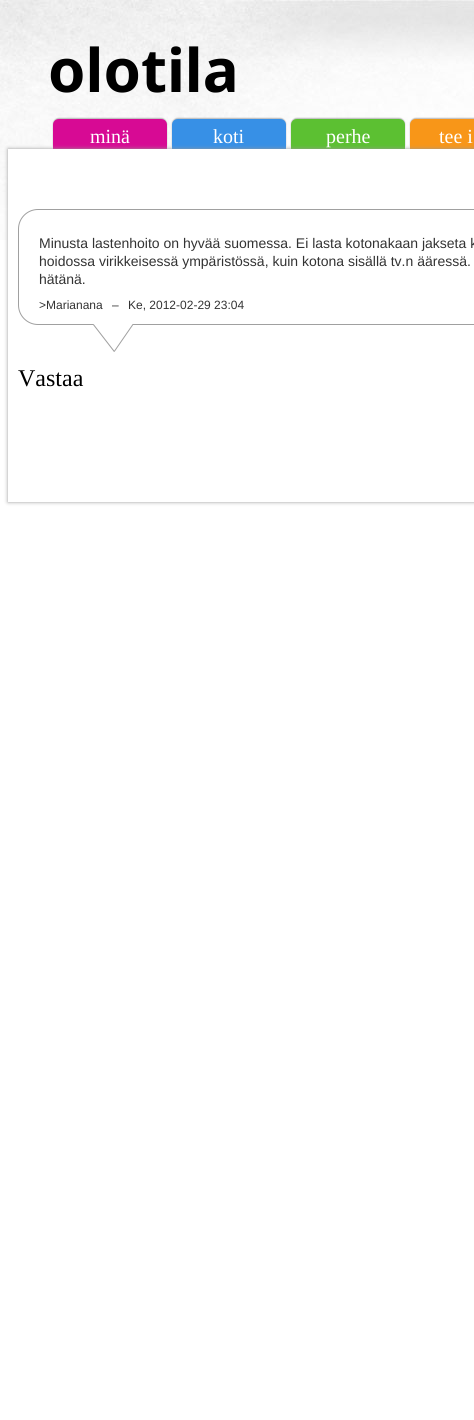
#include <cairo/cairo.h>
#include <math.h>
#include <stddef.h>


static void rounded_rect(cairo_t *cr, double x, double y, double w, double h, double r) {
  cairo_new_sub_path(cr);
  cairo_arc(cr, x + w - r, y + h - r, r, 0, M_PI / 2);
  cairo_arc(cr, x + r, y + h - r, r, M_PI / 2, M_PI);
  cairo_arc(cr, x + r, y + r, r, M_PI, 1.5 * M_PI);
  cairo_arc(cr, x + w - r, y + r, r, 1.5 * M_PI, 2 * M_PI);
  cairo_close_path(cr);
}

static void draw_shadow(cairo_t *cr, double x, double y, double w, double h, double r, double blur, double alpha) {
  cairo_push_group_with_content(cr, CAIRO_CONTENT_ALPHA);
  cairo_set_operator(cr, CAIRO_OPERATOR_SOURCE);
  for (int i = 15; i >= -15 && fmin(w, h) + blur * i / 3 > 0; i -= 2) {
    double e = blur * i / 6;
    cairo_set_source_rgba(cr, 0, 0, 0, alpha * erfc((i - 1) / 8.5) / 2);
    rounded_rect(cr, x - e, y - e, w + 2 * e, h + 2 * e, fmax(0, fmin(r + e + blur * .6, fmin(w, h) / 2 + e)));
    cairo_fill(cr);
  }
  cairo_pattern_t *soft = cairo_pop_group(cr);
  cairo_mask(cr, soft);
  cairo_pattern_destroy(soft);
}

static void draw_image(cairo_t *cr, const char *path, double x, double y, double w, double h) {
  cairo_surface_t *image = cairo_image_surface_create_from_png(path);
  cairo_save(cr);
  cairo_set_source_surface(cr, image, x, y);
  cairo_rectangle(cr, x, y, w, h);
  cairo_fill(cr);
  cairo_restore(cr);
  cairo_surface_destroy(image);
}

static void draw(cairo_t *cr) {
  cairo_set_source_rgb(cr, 1, 1, 1);
  cairo_paint(cr);
  draw_image(cr, "images/1.png", 0, 0, 474, 240);
  cairo_set_source_rgb(cr, 187 / 255.0, 187 / 255.0, 187 / 255.0);
  draw_shadow(cr, 53, 118, 114, 33, 6, 0.5, 1);
  cairo_set_source_rgb(cr, 215 / 255.0, 10 / 255.0, 148 / 255.0);
  cairo_new_path(cr);
  cairo_move_to(cr, 59, 119);
  cairo_line_to(cr, 161, 119);
  cairo_curve_to(cr, 164.5, 119, 167, 121.5, 167, 125);
  cairo_line_to(cr, 167, 152);
  cairo_line_to(cr, 53, 152);
  cairo_line_to(cr, 53, 125);
  cairo_curve_to(cr, 53, 121.5, 55.5, 119, 59, 119);
  cairo_close_path(cr);
  cairo_fill(cr);
  cairo_set_source_rgb(cr, 187 / 255.0, 187 / 255.0, 187 / 255.0);
  draw_shadow(cr, 172, 118, 114, 33, 6, 0.5, 1);
  cairo_set_source_rgb(cr, 55 / 255.0, 144 / 255.0, 230 / 255.0);
  cairo_new_path(cr);
  cairo_move_to(cr, 178, 119);
  cairo_line_to(cr, 280, 119);
  cairo_curve_to(cr, 283.5, 119, 286, 121.5, 286, 125);
  cairo_line_to(cr, 286, 152);
  cairo_line_to(cr, 172, 152);
  cairo_line_to(cr, 172, 125);
  cairo_curve_to(cr, 172, 121.5, 174.5, 119, 178, 119);
  cairo_close_path(cr);
  cairo_fill(cr);
  cairo_set_source_rgb(cr, 187 / 255.0, 187 / 255.0, 187 / 255.0);
  draw_shadow(cr, 291, 118, 114, 33, 6, 0.5, 1);
  cairo_set_source_rgb(cr, 92 / 255.0, 192 / 255.0, 50 / 255.0);
  cairo_new_path(cr);
  cairo_move_to(cr, 297, 119);
  cairo_line_to(cr, 399, 119);
  cairo_curve_to(cr, 402.5, 119, 405, 121.5, 405, 125);
  cairo_line_to(cr, 405, 152);
  cairo_line_to(cr, 291, 152);
  cairo_line_to(cr, 291, 125);
  cairo_curve_to(cr, 291, 121.5, 293.5, 119, 297, 119);
  cairo_close_path(cr);
  cairo_fill(cr);
  cairo_set_source_rgb(cr, 187 / 255.0, 187 / 255.0, 187 / 255.0);
  draw_shadow(cr, 410, 118, 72, 33, 6, 0.5, 1);
  cairo_set_source_rgb(cr, 248 / 255.0, 150 / 255.0, 24 / 255.0);
  cairo_new_path(cr);
  cairo_move_to(cr, 416, 119);
  cairo_line_to(cr, 474, 119);
  cairo_curve_to(cr, 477.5, 119, 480, 121.5, 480, 125);
  cairo_line_to(cr, 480, 152);
  cairo_line_to(cr, 410, 152);
  cairo_line_to(cr, 410, 125);
  cairo_curve_to(cr, 410, 121.5, 412.5, 119, 416, 119);
  cairo_close_path(cr);
  cairo_fill(cr);
  cairo_set_source_rgb(cr, 153 / 255.0, 153 / 255.0, 153 / 255.0);
  draw_shadow(cr, 8, 149, 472, 353, 0, 2, 1);
  cairo_set_source_rgb(cr, 1, 1, 1);
  cairo_rectangle(cr, 8, 149, 466, 353);
  cairo_fill(cr);
  rounded_rect(cr, 18.5, 209.5, 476, 115, 19.5);
  cairo_set_source_rgb(cr, 160 / 255.0, 160 / 255.0, 160 / 255.0);
  cairo_set_line_width(cr, 1);
  cairo_stroke(cr);
  draw_image(cr, "images/2.png", 93, 324, 40, 28);
  cairo_select_font_face(cr, "Noto Sans", CAIRO_FONT_SLANT_NORMAL, CAIRO_FONT_WEIGHT_BOLD);
  cairo_set_font_size(cr, 60);
  cairo_set_source_rgb(cr, 0, 0, 0);
  cairo_move_to(cr, 48, 92);
  cairo_show_text(cr, "olotila");
  cairo_select_font_face(cr, "Liberation Serif", CAIRO_FONT_SLANT_NORMAL, CAIRO_FONT_WEIGHT_NORMAL);
  cairo_set_font_size(cr, 20);
  cairo_set_source_rgb(cr, 1, 1, 1);
  cairo_move_to(cr, 90, 143);
  cairo_show_text(cr, "minä");
  cairo_move_to(cr, 213, 143);
  cairo_show_text(cr, "koti");
  cairo_move_to(cr, 326, 143);
  cairo_show_text(cr, "perhe");
  cairo_move_to(cr, 439, 143);
  cairo_show_text(cr, "tee i");
  cairo_select_font_face(cr, "Liberation Sans", CAIRO_FONT_SLANT_NORMAL, CAIRO_FONT_WEIGHT_NORMAL);
  cairo_set_font_size(cr, 14);
  cairo_set_source_rgb(cr, 51 / 255.0, 51 / 255.0, 51 / 255.0);
  cairo_move_to(cr, 39, 248);
  cairo_show_text(cr, "Minusta lastenhoito on hyvää suomessa. Ei lasta kotonakaan jakseta k");
  cairo_move_to(cr, 39, 266);
  cairo_show_text(cr, "hoidossa virikkeisessä ympäristössä, kuin kotona sisällä tv.n ääressä.");
  cairo_move_to(cr, 39, 284);
  cairo_show_text(cr, "hätänä.");
  cairo_set_font_size(cr, 12);
  cairo_move_to(cr, 39, 309);
  cairo_show_text(cr, ">Marianana");
  cairo_move_to(cr, 112, 309);
  cairo_show_text(cr, "–");
  cairo_move_to(cr, 128, 309);
  cairo_show_text(cr, "Ke, 2012-02-29 23:04");
  cairo_select_font_face(cr, "Liberation Serif", CAIRO_FONT_SLANT_NORMAL, CAIRO_FONT_WEIGHT_NORMAL);
  cairo_set_font_size(cr, 24);
  cairo_set_source_rgb(cr, 0, 0, 0);
  cairo_move_to(cr, 18, 386);
  cairo_show_text(cr, "Vastaa");
}

int main(void) {
  cairo_surface_t *surface = cairo_image_surface_create(CAIRO_FORMAT_RGB24, 474, 1420);
  cairo_t *cr = cairo_create(surface);
  cairo_font_options_t *options = cairo_font_options_create();
  cairo_font_options_set_hint_metrics(options, CAIRO_HINT_METRICS_OFF);
  cairo_font_options_set_hint_style(options, CAIRO_HINT_STYLE_NONE);
  cairo_set_font_options(cr, options);
  cairo_set_miter_limit(cr, 4);
  draw(cr);
  cairo_surface_write_to_png(surface, "out.png");
  cairo_font_options_destroy(options);
  cairo_destroy(cr);
  cairo_surface_destroy(surface);
  return 0;
}
